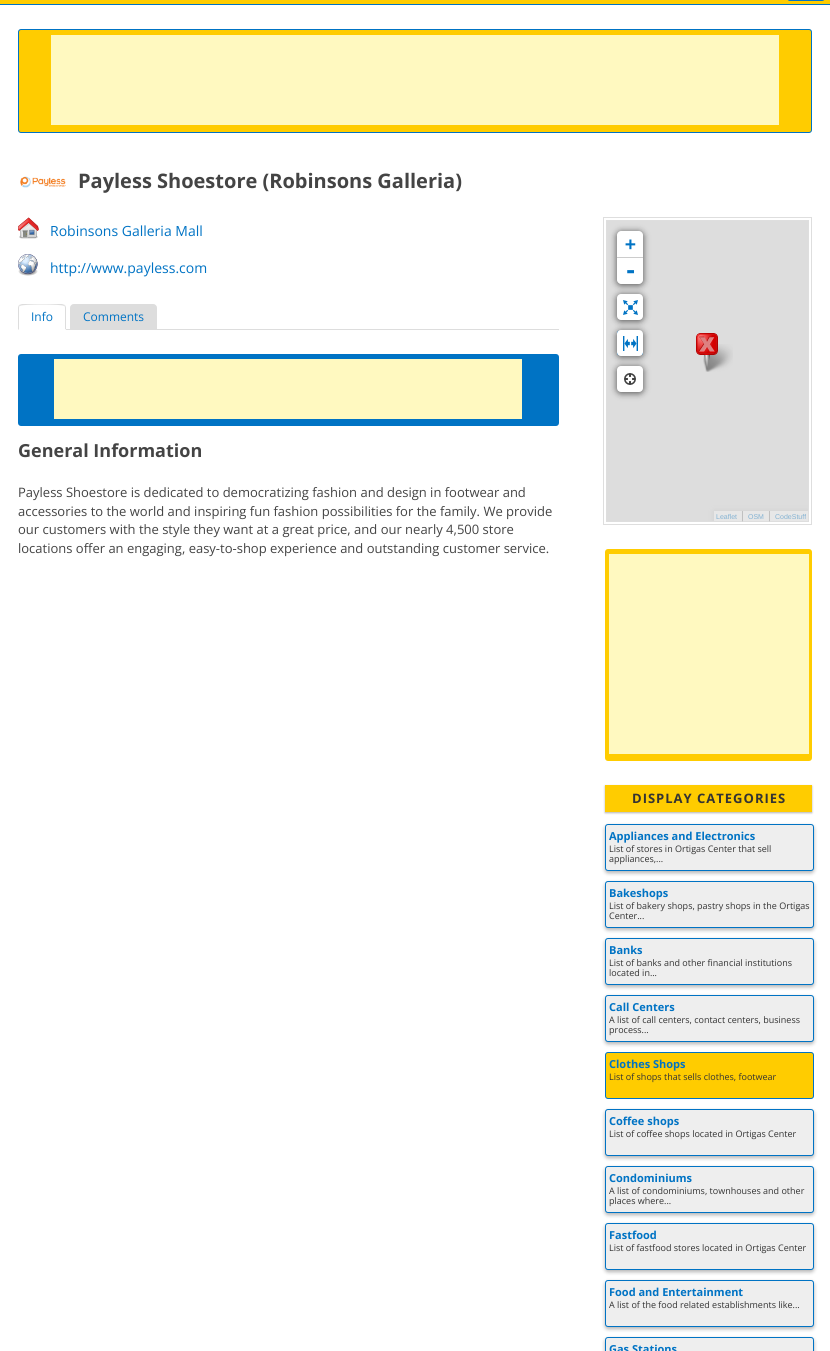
#include <cairo/cairo.h>
#include <math.h>
#include <stddef.h>


static void draw_spaced(cairo_t *cr, double x, double y, const char *s, double letter, double word) {
  cairo_move_to(cr, x, y);
  while (*s) {
    char ch[5] = {0};
    int n = 0;
    do ch[n++] = *s++; while ((*s & 0xC0) == 0x80);
    cairo_show_text(cr, ch);
    cairo_rel_move_to(cr, letter + word * (*ch == ' '), 0);
  }
}

static void rounded_rect(cairo_t *cr, double x, double y, double w, double h, double r) {
  cairo_new_sub_path(cr);
  cairo_arc(cr, x + w - r, y + h - r, r, 0, M_PI / 2);
  cairo_arc(cr, x + r, y + h - r, r, M_PI / 2, M_PI);
  cairo_arc(cr, x + r, y + r, r, M_PI, 1.5 * M_PI);
  cairo_arc(cr, x + w - r, y + r, r, 1.5 * M_PI, 2 * M_PI);
  cairo_close_path(cr);
}

static void draw_shadow(cairo_t *cr, double x, double y, double w, double h, double r, double blur, double alpha) {
  cairo_push_group_with_content(cr, CAIRO_CONTENT_ALPHA);
  cairo_set_operator(cr, CAIRO_OPERATOR_SOURCE);
  for (int i = 15; i >= -15 && fmin(w, h) + blur * i / 3 > 0; i -= 2) {
    double e = blur * i / 6;
    cairo_set_source_rgba(cr, 0, 0, 0, alpha * erfc((i - 1) / 8.5) / 2);
    rounded_rect(cr, x - e, y - e, w + 2 * e, h + 2 * e, fmax(0, fmin(r + e + blur * .6, fmin(w, h) / 2 + e)));
    cairo_fill(cr);
  }
  cairo_pattern_t *soft = cairo_pop_group(cr);
  cairo_mask(cr, soft);
  cairo_pattern_destroy(soft);
}

static void draw_image(cairo_t *cr, const char *path, double x, double y, double w, double h) {
  cairo_surface_t *image = cairo_image_surface_create_from_png(path);
  cairo_save(cr);
  cairo_set_source_surface(cr, image, x, y);
  cairo_rectangle(cr, x, y, w, h);
  cairo_fill(cr);
  cairo_restore(cr);
  cairo_surface_destroy(image);
}

static void draw(cairo_t *cr) {
  cairo_set_source_rgb(cr, 1, 1, 1);
  cairo_paint(cr);
  cairo_set_source_rgb(cr, 1, 204 / 255.0, 0);
  cairo_rectangle(cr, 0, 0, 830, 4);
  cairo_fill(cr);
  rounded_rect(cr, 787.5, -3.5, 37, 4, 2.5);
  cairo_set_source_rgb(cr, 0, 115 / 255.0, 196 / 255.0);
  cairo_set_line_width(cr, 1);
  cairo_stroke(cr);
  cairo_rectangle(cr, 0, 4, 830, 1);
  cairo_fill(cr);
  cairo_set_source_rgb(cr, 1, 204 / 255.0, 0);
  rounded_rect(cr, 18.5, 29.5, 793, 103, 2.5);
  cairo_fill_preserve(cr);
  cairo_set_source_rgb(cr, 0, 115 / 255.0, 196 / 255.0);
  cairo_stroke(cr);
  cairo_set_source_rgb(cr, 1, 249 / 255.0, 192 / 255.0);
  cairo_rectangle(cr, 51, 35, 728, 90);
  cairo_fill(cr);
  draw_image(cr, "images/1.png", 20, 176, 46, 12);
  draw_image(cr, "images/2.png", 18, 217, 21, 22);
  draw_image(cr, "images/3.png", 18, 254, 20, 22);
  cairo_set_source_rgb(cr, 221 / 255.0, 221 / 255.0, 221 / 255.0);
  cairo_rectangle(cr, 66, 329, 493, 1);
  cairo_fill(cr);
  cairo_new_path(cr);
  cairo_move_to(cr, 22, 304);
  cairo_line_to(cr, 19, 305);
  cairo_line_to(cr, 20, 306);
  cairo_curve_to(cr, 21, 304, 63, 304, 64, 306);
  cairo_line_to(cr, 65, 305);
  cairo_line_to(cr, 62, 304);
  cairo_close_path(cr);
  cairo_fill(cr);
  cairo_new_path(cr);
  cairo_move_to(cr, 66, 330);
  cairo_line_to(cr, 66, 308);
  cairo_curve_to(cr, 66, 307, 65.5, 306, 65, 305);
  cairo_line_to(cr, 64, 306);
  cairo_curve_to(cr, 65, 306, 65, 307, 65, 308);
  cairo_line_to(cr, 65, 329);
  cairo_close_path(cr);
  cairo_fill(cr);
  cairo_set_source_rgb(cr, 1, 1, 1);
  cairo_new_path(cr);
  cairo_move_to(cr, 66, 330);
  cairo_line_to(cr, 65, 329);
  cairo_line_to(cr, 19, 329);
  cairo_line_to(cr, 18, 330);
  cairo_close_path(cr);
  cairo_fill(cr);
  cairo_set_source_rgb(cr, 221 / 255.0, 221 / 255.0, 221 / 255.0);
  cairo_new_path(cr);
  cairo_move_to(cr, 18, 330);
  cairo_line_to(cr, 19, 329);
  cairo_line_to(cr, 19, 308);
  cairo_curve_to(cr, 19, 307, 19, 306, 20, 306);
  cairo_line_to(cr, 19, 305);
  cairo_curve_to(cr, 18.5, 306, 18, 307, 18, 308);
  cairo_close_path(cr);
  cairo_fill(cr);
  cairo_new_path(cr);
  cairo_move_to(cr, 74, 304.5);
  cairo_line_to(cr, 153, 304.5);
  cairo_curve_to(cr, 155, 304.5, 156.5, 306, 156.5, 308);
  cairo_line_to(cr, 156.5, 329.5);
  cairo_line_to(cr, 70.5, 329.5);
  cairo_line_to(cr, 70.5, 308);
  cairo_curve_to(cr, 70.5, 306, 72, 304.5, 74, 304.5);
  cairo_close_path(cr);
  cairo_fill_preserve(cr);
  cairo_stroke(cr);
  cairo_set_source_rgb(cr, 0, 115 / 255.0, 196 / 255.0);
  rounded_rect(cr, 18, 354, 541, 72, 3);
  cairo_fill(cr);
  cairo_set_source_rgb(cr, 1, 249 / 255.0, 192 / 255.0);
  cairo_rectangle(cr, 54, 359, 468, 60);
  cairo_fill(cr);
  cairo_rectangle(cr, 603.5, 217.5, 208, 307);
  cairo_set_source_rgb(cr, 222 / 255.0, 222 / 255.0, 222 / 255.0);
  cairo_stroke(cr);
  cairo_rectangle(cr, 606.5, 220.5, 202, 301);
  cairo_stroke(cr);
  cairo_set_source_rgb(cr, 221 / 255.0, 221 / 255.0, 221 / 255.0);
  cairo_rectangle(cr, 607, 221, 201, 300);
  cairo_fill(cr);
  cairo_set_source_rgb(cr, 0, 0, 0);
  draw_shadow(cr, 617, 232, 26, 53, 4, 3.5, 0.65);
  cairo_set_source_rgb(cr, 1, 1, 1);
  cairo_new_path(cr);
  cairo_move_to(cr, 621, 231);
  cairo_line_to(cr, 639, 231);
  cairo_curve_to(cr, 641, 231, 643, 233, 643, 235);
  cairo_line_to(cr, 643, 258);
  cairo_line_to(cr, 617, 258);
  cairo_line_to(cr, 617, 235);
  cairo_curve_to(cr, 617, 233, 619, 231, 621, 231);
  cairo_close_path(cr);
  cairo_fill(cr);
  cairo_set_source_rgb(cr, 204 / 255.0, 204 / 255.0, 204 / 255.0);
  cairo_rectangle(cr, 617, 257, 26, 1);
  cairo_fill(cr);
  cairo_set_source_rgb(cr, 1, 1, 1);
  cairo_new_path(cr);
  cairo_move_to(cr, 617, 258);
  cairo_line_to(cr, 643, 258);
  cairo_line_to(cr, 643, 280);
  cairo_curve_to(cr, 643, 282, 641, 284, 639, 284);
  cairo_line_to(cr, 621, 284);
  cairo_curve_to(cr, 619, 284, 617, 282, 617, 280);
  cairo_close_path(cr);
  cairo_fill(cr);
  cairo_set_source_rgb(cr, 0, 0, 0);
  draw_shadow(cr, 617, 295, 26, 26, 4, 3.5, 0.65);
  cairo_set_source_rgb(cr, 1, 1, 1);
  rounded_rect(cr, 617, 294, 26, 26, 4);
  cairo_fill(cr);
  draw_image(cr, "images/4.png", 623, 300, 15, 15);
  cairo_set_source_rgb(cr, 0, 0, 0);
  draw_shadow(cr, 617, 331, 26, 26, 4, 3.5, 0.65);
  draw_image(cr, "images/5.png", 617, 330, 26, 26);
  cairo_set_source_rgb(cr, 1, 1, 1);
  rounded_rect(cr, 617, 330, 26, 26, 4);
  cairo_fill(cr);
  draw_image(cr, "images/6.png", 623, 336, 15, 15);
  cairo_set_source_rgb(cr, 0, 0, 0);
  draw_shadow(cr, 617, 367, 26, 26, 4, 3.5, 0.65);
  cairo_set_source_rgb(cr, 1, 1, 1);
  rounded_rect(cr, 617, 366, 26, 26, 4);
  cairo_fill(cr);
  draw_image(cr, "images/7.png", 624, 373, 12, 12);
  cairo_save(cr);
  cairo_rectangle(cr, 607, 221, 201, 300);
  cairo_clip(cr);
  cairo_set_source_rgb(cr, 207 / 255.0, 207 / 255.0, 207 / 255.0);
  draw_shadow(cr, 714, 511, 94, 10, 0, 2.5, 1);
  cairo_restore(cr);
  cairo_set_source_rgb(cr, 231 / 255.0, 231 / 255.0, 231 / 255.0);
  cairo_rectangle(cr, 714, 511, 94, 10);
  cairo_fill(cr);
  draw_image(cr, "images/9.png", 703, 344, 30, 28);
  draw_image(cr, "images/8.png", 696, 333, 22, 38);
  cairo_set_source_rgb(cr, 1, 204 / 255.0, 0);
  rounded_rect(cr, 605, 549, 207, 212, 3);
  cairo_fill(cr);
  cairo_set_source_rgb(cr, 1, 249 / 255.0, 192 / 255.0);
  cairo_rectangle(cr, 609, 554, 200, 200);
  cairo_fill(cr);
  cairo_set_source_rgb(cr, 0, 0, 0);
  draw_shadow(cr, 605, 786, 207, 27, 0, 1, 0.3);
  cairo_set_source_rgb(cr, 1, 204 / 255.0, 0);
  cairo_rectangle(cr, 605, 785, 207, 27);
  cairo_fill(cr);
  cairo_set_source_rgb(cr, 0, 0, 0);
  draw_shadow(cr, 605, 826, 209, 47, 3, 2, 0.3);
  cairo_set_source_rgb(cr, 238 / 255.0, 238 / 255.0, 238 / 255.0);
  rounded_rect(cr, 605.5, 824.5, 208, 46, 2.5);
  cairo_fill_preserve(cr);
  cairo_set_source_rgb(cr, 0, 115 / 255.0, 196 / 255.0);
  cairo_stroke(cr);
  cairo_set_source_rgb(cr, 0, 0, 0);
  draw_shadow(cr, 605, 883, 209, 47, 3, 2, 0.3);
  cairo_set_source_rgb(cr, 238 / 255.0, 238 / 255.0, 238 / 255.0);
  rounded_rect(cr, 605.5, 881.5, 208, 46, 2.5);
  cairo_fill_preserve(cr);
  cairo_set_source_rgb(cr, 0, 115 / 255.0, 196 / 255.0);
  cairo_stroke(cr);
  cairo_set_source_rgb(cr, 0, 0, 0);
  draw_shadow(cr, 605, 940, 209, 47, 3, 2, 0.3);
  cairo_set_source_rgb(cr, 238 / 255.0, 238 / 255.0, 238 / 255.0);
  rounded_rect(cr, 605.5, 938.5, 208, 46, 2.5);
  cairo_fill_preserve(cr);
  cairo_set_source_rgb(cr, 0, 115 / 255.0, 196 / 255.0);
  cairo_stroke(cr);
  cairo_set_source_rgb(cr, 0, 0, 0);
  draw_shadow(cr, 605, 997, 209, 47, 3, 2, 0.3);
  cairo_set_source_rgb(cr, 238 / 255.0, 238 / 255.0, 238 / 255.0);
  rounded_rect(cr, 605.5, 995.5, 208, 46, 2.5);
  cairo_fill_preserve(cr);
  cairo_set_source_rgb(cr, 0, 115 / 255.0, 196 / 255.0);
  cairo_stroke(cr);
  cairo_set_source_rgb(cr, 1, 204 / 255.0, 0);
  rounded_rect(cr, 605.5, 1052.5, 208, 46, 2.5);
  cairo_fill_preserve(cr);
  cairo_set_source_rgb(cr, 0, 115 / 255.0, 196 / 255.0);
  cairo_stroke(cr);
  cairo_set_source_rgb(cr, 0, 0, 0);
  draw_shadow(cr, 605, 1111, 209, 47, 3, 2, 0.3);
  cairo_set_source_rgb(cr, 238 / 255.0, 238 / 255.0, 238 / 255.0);
  rounded_rect(cr, 605.5, 1109.5, 208, 46, 2.5);
  cairo_fill_preserve(cr);
  cairo_set_source_rgb(cr, 0, 115 / 255.0, 196 / 255.0);
  cairo_stroke(cr);
  cairo_set_source_rgb(cr, 0, 0, 0);
  draw_shadow(cr, 605, 1168, 209, 47, 3, 2, 0.3);
  cairo_set_source_rgb(cr, 238 / 255.0, 238 / 255.0, 238 / 255.0);
  rounded_rect(cr, 605.5, 1166.5, 208, 46, 2.5);
  cairo_fill_preserve(cr);
  cairo_set_source_rgb(cr, 0, 115 / 255.0, 196 / 255.0);
  cairo_stroke(cr);
  cairo_set_source_rgb(cr, 0, 0, 0);
  draw_shadow(cr, 605, 1225, 209, 47, 3, 2, 0.3);
  cairo_set_source_rgb(cr, 238 / 255.0, 238 / 255.0, 238 / 255.0);
  rounded_rect(cr, 605.5, 1223.5, 208, 46, 2.5);
  cairo_fill_preserve(cr);
  cairo_set_source_rgb(cr, 0, 115 / 255.0, 196 / 255.0);
  cairo_stroke(cr);
  cairo_set_source_rgb(cr, 0, 0, 0);
  draw_shadow(cr, 605, 1282, 209, 47, 3, 2, 0.3);
  cairo_set_source_rgb(cr, 238 / 255.0, 238 / 255.0, 238 / 255.0);
  rounded_rect(cr, 605.5, 1280.5, 208, 46, 2.5);
  cairo_fill_preserve(cr);
  cairo_set_source_rgb(cr, 0, 115 / 255.0, 196 / 255.0);
  cairo_stroke(cr);
  cairo_set_source_rgb(cr, 0, 0, 0);
  draw_shadow(cr, 605, 1339, 209, 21, 3, 2, 0.3);
  cairo_set_source_rgb(cr, 238 / 255.0, 238 / 255.0, 238 / 255.0);
  rounded_rect(cr, 605.5, 1337.5, 208, 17, 2.5);
  cairo_fill_preserve(cr);
  cairo_set_source_rgb(cr, 0, 115 / 255.0, 196 / 255.0);
  cairo_stroke(cr);
  cairo_select_font_face(cr, "Open Sans", CAIRO_FONT_SLANT_NORMAL, CAIRO_FONT_WEIGHT_BOLD);
  cairo_set_font_size(cr, 20);
  cairo_set_source_rgb(cr, 68 / 255.0, 68 / 255.0, 68 / 255.0);
  cairo_move_to(cr, 78, 188);
  cairo_show_text(cr, "Payless Shoestore (Robinsons Galleria)");
  cairo_select_font_face(cr, "Open Sans", CAIRO_FONT_SLANT_NORMAL, CAIRO_FONT_WEIGHT_NORMAL);
  cairo_set_font_size(cr, 14);
  cairo_set_source_rgb(cr, 0, 115 / 255.0, 196 / 255.0);
  cairo_move_to(cr, 50, 236);
  cairo_show_text(cr, "Robinsons Galleria Mall");
  cairo_move_to(cr, 50, 273);
  cairo_show_text(cr, "http://www.payless.com");
  cairo_set_font_size(cr, 12);
  cairo_move_to(cr, 31, 321);
  cairo_show_text(cr, "Info");
  cairo_move_to(cr, 83, 321);
  cairo_show_text(cr, "Comments");
  cairo_select_font_face(cr, "Open Sans", CAIRO_FONT_SLANT_NORMAL, CAIRO_FONT_WEIGHT_BOLD);
  cairo_set_font_size(cr, 18);
  cairo_set_source_rgb(cr, 68 / 255.0, 68 / 255.0, 68 / 255.0);
  cairo_move_to(cr, 18, 457);
  cairo_show_text(cr, "General Information");
  cairo_select_font_face(cr, "Open Sans", CAIRO_FONT_SLANT_NORMAL, CAIRO_FONT_WEIGHT_NORMAL);
  cairo_set_font_size(cr, 13);
  cairo_move_to(cr, 18, 497);
  cairo_show_text(cr, "Payless Shoestore is dedicated to democratizing fashion and design in footwear and");
  cairo_move_to(cr, 18, 516);
  cairo_show_text(cr, "accessories to the world and inspiring fun fashion possibilities for the family. We provide");
  cairo_move_to(cr, 18, 534);
  cairo_show_text(cr, "our customers with the style they want at a great price, and our nearly 4,500 store");
  cairo_move_to(cr, 18, 553);
  cairo_show_text(cr, "locations offer an engaging, easy-to-shop experience and outstanding customer service.");
  cairo_select_font_face(cr, "DejaVu Sans Mono", CAIRO_FONT_SLANT_NORMAL, CAIRO_FONT_WEIGHT_BOLD);
  cairo_set_font_size(cr, 18);
  cairo_set_source_rgb(cr, 0, 115 / 255.0, 196 / 255.0);
  cairo_move_to(cr, 625, 250);
  cairo_show_text(cr, "+");
  cairo_set_font_size(cr, 22);
  cairo_move_to(cr, 624, 278);
  cairo_show_text(cr, "-");
  cairo_select_font_face(cr, "Liberation Sans", CAIRO_FONT_SLANT_NORMAL, CAIRO_FONT_WEIGHT_NORMAL);
  cairo_set_font_size(cr, 7);
  cairo_set_source_rgb(cr, 133 / 255.0, 179 / 255.0, 211 / 255.0);
  cairo_move_to(cr, 716, 519);
  cairo_show_text(cr, "Leaflet");
  cairo_set_font_size(cr, 11);
  cairo_set_source_rgb(cr, 187 / 255.0, 187 / 255.0, 187 / 255.0);
  cairo_move_to(cr, 741, 519);
  cairo_show_text(cr, "|");
  cairo_set_font_size(cr, 7);
  cairo_set_source_rgb(cr, 133 / 255.0, 179 / 255.0, 211 / 255.0);
  cairo_move_to(cr, 748, 519);
  cairo_show_text(cr, "OSM");
  cairo_set_font_size(cr, 11);
  cairo_set_source_rgb(cr, 187 / 255.0, 187 / 255.0, 187 / 255.0);
  cairo_move_to(cr, 768, 519);
  cairo_show_text(cr, "|");
  cairo_set_font_size(cr, 7);
  cairo_set_source_rgb(cr, 133 / 255.0, 179 / 255.0, 211 / 255.0);
  cairo_move_to(cr, 775, 519);
  cairo_show_text(cr, "CodeStuff");
  cairo_select_font_face(cr, "Open Sans", CAIRO_FONT_SLANT_NORMAL, CAIRO_FONT_WEIGHT_BOLD);
  cairo_set_font_size(cr, 13);
  cairo_set_source_rgb(cr, 51 / 255.0, 51 / 255.0, 51 / 255.0);
  draw_spaced(cr, 632, 803, "DISPLAY CATEGORIES", 1, 0);
  cairo_set_font_size(cr, 11);
  cairo_set_source_rgb(cr, 0, 115 / 255.0, 196 / 255.0);
  cairo_move_to(cr, 609, 840);
  cairo_show_text(cr, "Appliances and Electronics");
  cairo_select_font_face(cr, "Open Sans", CAIRO_FONT_SLANT_NORMAL, CAIRO_FONT_WEIGHT_NORMAL);
  cairo_set_font_size(cr, 9);
  cairo_set_source_rgb(cr, 51 / 255.0, 51 / 255.0, 51 / 255.0);
  cairo_move_to(cr, 609, 852);
  cairo_show_text(cr, "List of stores in Ortigas Center that sell");
  cairo_move_to(cr, 609, 862);
  cairo_show_text(cr, "appliances,...");
  cairo_select_font_face(cr, "Open Sans", CAIRO_FONT_SLANT_NORMAL, CAIRO_FONT_WEIGHT_BOLD);
  cairo_set_font_size(cr, 11);
  cairo_set_source_rgb(cr, 0, 115 / 255.0, 196 / 255.0);
  cairo_move_to(cr, 609, 897);
  cairo_show_text(cr, "Bakeshops");
  cairo_select_font_face(cr, "Open Sans", CAIRO_FONT_SLANT_NORMAL, CAIRO_FONT_WEIGHT_NORMAL);
  cairo_set_font_size(cr, 9);
  cairo_set_source_rgb(cr, 51 / 255.0, 51 / 255.0, 51 / 255.0);
  cairo_move_to(cr, 609, 909);
  cairo_show_text(cr, "List of bakery shops, pastry shops in the Ortigas");
  cairo_move_to(cr, 609, 919);
  cairo_show_text(cr, "Center...");
  cairo_select_font_face(cr, "Open Sans", CAIRO_FONT_SLANT_NORMAL, CAIRO_FONT_WEIGHT_BOLD);
  cairo_set_font_size(cr, 11);
  cairo_set_source_rgb(cr, 0, 115 / 255.0, 196 / 255.0);
  cairo_move_to(cr, 609, 954);
  cairo_show_text(cr, "Banks");
  cairo_select_font_face(cr, "Open Sans", CAIRO_FONT_SLANT_NORMAL, CAIRO_FONT_WEIGHT_NORMAL);
  cairo_set_font_size(cr, 9);
  cairo_set_source_rgb(cr, 51 / 255.0, 51 / 255.0, 51 / 255.0);
  cairo_move_to(cr, 609, 966);
  cairo_show_text(cr, "List of banks and other financial institutions");
  cairo_move_to(cr, 609, 976);
  cairo_show_text(cr, "located in...");
  cairo_select_font_face(cr, "Open Sans", CAIRO_FONT_SLANT_NORMAL, CAIRO_FONT_WEIGHT_BOLD);
  cairo_set_font_size(cr, 11);
  cairo_set_source_rgb(cr, 0, 115 / 255.0, 196 / 255.0);
  cairo_move_to(cr, 609, 1011);
  cairo_show_text(cr, "Call Centers");
  cairo_select_font_face(cr, "Open Sans", CAIRO_FONT_SLANT_NORMAL, CAIRO_FONT_WEIGHT_NORMAL);
  cairo_set_font_size(cr, 9);
  cairo_set_source_rgb(cr, 51 / 255.0, 51 / 255.0, 51 / 255.0);
  cairo_move_to(cr, 609, 1023);
  cairo_show_text(cr, "A list of call centers, contact centers, business");
  cairo_move_to(cr, 609, 1033);
  cairo_show_text(cr, "process...");
  cairo_select_font_face(cr, "Open Sans", CAIRO_FONT_SLANT_NORMAL, CAIRO_FONT_WEIGHT_BOLD);
  cairo_set_font_size(cr, 11);
  cairo_set_source_rgb(cr, 0, 115 / 255.0, 196 / 255.0);
  cairo_move_to(cr, 609, 1068);
  cairo_show_text(cr, "Clothes Shops");
  cairo_select_font_face(cr, "Open Sans", CAIRO_FONT_SLANT_NORMAL, CAIRO_FONT_WEIGHT_NORMAL);
  cairo_set_font_size(cr, 9);
  cairo_set_source_rgb(cr, 51 / 255.0, 51 / 255.0, 51 / 255.0);
  cairo_move_to(cr, 609, 1080);
  cairo_show_text(cr, "List of shops that sells clothes, footwear");
  cairo_select_font_face(cr, "Open Sans", CAIRO_FONT_SLANT_NORMAL, CAIRO_FONT_WEIGHT_BOLD);
  cairo_set_font_size(cr, 11);
  cairo_set_source_rgb(cr, 0, 115 / 255.0, 196 / 255.0);
  cairo_move_to(cr, 609, 1125);
  cairo_show_text(cr, "Coffee shops");
  cairo_select_font_face(cr, "Open Sans", CAIRO_FONT_SLANT_NORMAL, CAIRO_FONT_WEIGHT_NORMAL);
  cairo_set_font_size(cr, 9);
  cairo_set_source_rgb(cr, 51 / 255.0, 51 / 255.0, 51 / 255.0);
  cairo_move_to(cr, 609, 1137);
  cairo_show_text(cr, "List of coffee shops located in Ortigas Center");
  cairo_select_font_face(cr, "Open Sans", CAIRO_FONT_SLANT_NORMAL, CAIRO_FONT_WEIGHT_BOLD);
  cairo_set_font_size(cr, 11);
  cairo_set_source_rgb(cr, 0, 115 / 255.0, 196 / 255.0);
  cairo_move_to(cr, 609, 1182);
  cairo_show_text(cr, "Condominiums");
  cairo_select_font_face(cr, "Open Sans", CAIRO_FONT_SLANT_NORMAL, CAIRO_FONT_WEIGHT_NORMAL);
  cairo_set_font_size(cr, 9);
  cairo_set_source_rgb(cr, 51 / 255.0, 51 / 255.0, 51 / 255.0);
  cairo_move_to(cr, 609, 1194);
  cairo_show_text(cr, "A list of condominiums, townhouses and other");
  cairo_move_to(cr, 609, 1204);
  cairo_show_text(cr, "places where...");
  cairo_select_font_face(cr, "Open Sans", CAIRO_FONT_SLANT_NORMAL, CAIRO_FONT_WEIGHT_BOLD);
  cairo_set_font_size(cr, 11);
  cairo_set_source_rgb(cr, 0, 115 / 255.0, 196 / 255.0);
  cairo_move_to(cr, 609, 1239);
  cairo_show_text(cr, "Fastfood");
  cairo_select_font_face(cr, "Open Sans", CAIRO_FONT_SLANT_NORMAL, CAIRO_FONT_WEIGHT_NORMAL);
  cairo_set_font_size(cr, 9);
  cairo_set_source_rgb(cr, 51 / 255.0, 51 / 255.0, 51 / 255.0);
  cairo_move_to(cr, 609, 1251);
  cairo_show_text(cr, "List of fastfood stores located in Ortigas Center");
  cairo_select_font_face(cr, "Open Sans", CAIRO_FONT_SLANT_NORMAL, CAIRO_FONT_WEIGHT_BOLD);
  cairo_set_font_size(cr, 11);
  cairo_set_source_rgb(cr, 0, 115 / 255.0, 196 / 255.0);
  cairo_move_to(cr, 609, 1296);
  cairo_show_text(cr, "Food and Entertainment");
  cairo_select_font_face(cr, "Open Sans", CAIRO_FONT_SLANT_NORMAL, CAIRO_FONT_WEIGHT_NORMAL);
  cairo_set_font_size(cr, 9);
  cairo_set_source_rgb(cr, 51 / 255.0, 51 / 255.0, 51 / 255.0);
  cairo_move_to(cr, 609, 1308);
  cairo_show_text(cr, "A list of the food related establishments like...");
  cairo_select_font_face(cr, "Open Sans", CAIRO_FONT_SLANT_NORMAL, CAIRO_FONT_WEIGHT_BOLD);
  cairo_set_font_size(cr, 11);
  cairo_set_source_rgb(cr, 0, 115 / 255.0, 196 / 255.0);
  cairo_move_to(cr, 609, 1353);
  cairo_show_text(cr, "Gas Stations");
}

int main(void) {
  cairo_surface_t *surface = cairo_image_surface_create(CAIRO_FORMAT_RGB24, 830, 1351);
  cairo_t *cr = cairo_create(surface);
  cairo_font_options_t *options = cairo_font_options_create();
  cairo_font_options_set_hint_metrics(options, CAIRO_HINT_METRICS_OFF);
  cairo_font_options_set_hint_style(options, CAIRO_HINT_STYLE_NONE);
  cairo_set_font_options(cr, options);
  cairo_set_miter_limit(cr, 4);
  draw(cr);
  cairo_surface_write_to_png(surface, "out.png");
  cairo_font_options_destroy(options);
  cairo_destroy(cr);
  cairo_surface_destroy(surface);
  return 0;
}
